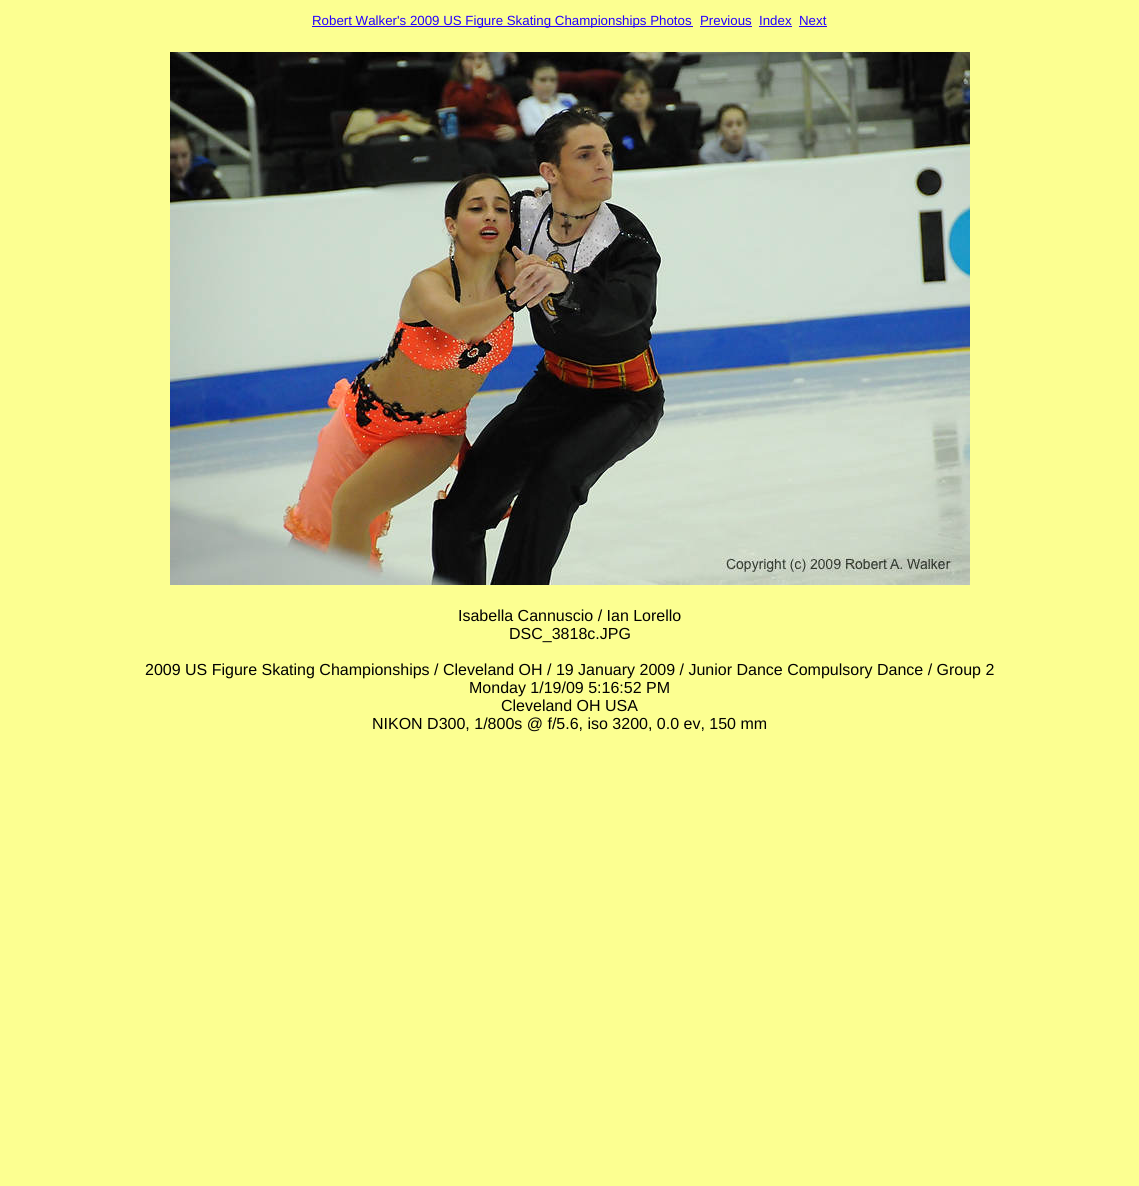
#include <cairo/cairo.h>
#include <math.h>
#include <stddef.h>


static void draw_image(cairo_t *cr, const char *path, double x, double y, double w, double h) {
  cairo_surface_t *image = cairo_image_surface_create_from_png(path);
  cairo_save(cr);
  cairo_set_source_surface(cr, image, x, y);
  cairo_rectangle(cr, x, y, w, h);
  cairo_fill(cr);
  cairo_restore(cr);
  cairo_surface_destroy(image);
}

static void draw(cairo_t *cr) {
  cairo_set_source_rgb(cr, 252 / 255.0, 1, 145 / 255.0);
  cairo_paint(cr);
  cairo_set_source_rgb(cr, 35 / 255.0, 0, 1);
  cairo_rectangle(cr, 312, 26, 381, 1);
  cairo_fill(cr);
  cairo_rectangle(cr, 700, 26, 52, 1);
  cairo_fill(cr);
  cairo_rectangle(cr, 759, 26, 33, 1);
  cairo_fill(cr);
  cairo_rectangle(cr, 799, 26, 28, 1);
  cairo_fill(cr);
  draw_image(cr, "images/1.png", 170, 52, 800, 533);
  cairo_select_font_face(cr, "Liberation Sans", CAIRO_FONT_SLANT_NORMAL, CAIRO_FONT_WEIGHT_NORMAL);
  cairo_set_font_size(cr, 13.3);
  cairo_move_to(cr, 312, 25);
  cairo_show_text(cr, "Robert Walker's 2009 US Figure Skating Championships Photos");
  cairo_move_to(cr, 700, 25);
  cairo_show_text(cr, "Previous");
  cairo_move_to(cr, 759, 25);
  cairo_show_text(cr, "Index");
  cairo_move_to(cr, 799, 25);
  cairo_show_text(cr, "Next");
  cairo_set_font_size(cr, 16);
  cairo_set_source_rgb(cr, 0, 0, 0);
  cairo_move_to(cr, 458, 621);
  cairo_show_text(cr, "Isabella Cannuscio / Ian Lorello");
  cairo_move_to(cr, 509, 639);
  cairo_show_text(cr, "DSC_3818c.JPG");
  cairo_move_to(cr, 145, 675);
  cairo_show_text(cr, "2009 US Figure Skating Championships / Cleveland OH / 19 January 2009 / Junior Dance Compulsory Dance / Group 2");
  cairo_move_to(cr, 469, 693);
  cairo_show_text(cr, "Monday 1/19/09 5:16:52 PM");
  cairo_move_to(cr, 501, 711);
  cairo_show_text(cr, "Cleveland OH USA");
  cairo_move_to(cr, 372, 729);
  cairo_show_text(cr, "NIKON D300, 1/800s @ f/5.6, iso 3200, 0.0 ev, 150 mm");
}

int main(void) {
  cairo_surface_t *surface = cairo_image_surface_create(CAIRO_FORMAT_RGB24, 1139, 1186);
  cairo_t *cr = cairo_create(surface);
  cairo_font_options_t *options = cairo_font_options_create();
  cairo_font_options_set_hint_metrics(options, CAIRO_HINT_METRICS_OFF);
  cairo_font_options_set_hint_style(options, CAIRO_HINT_STYLE_NONE);
  cairo_set_font_options(cr, options);
  cairo_set_miter_limit(cr, 4);
  draw(cr);
  cairo_surface_write_to_png(surface, "out.png");
  cairo_font_options_destroy(options);
  cairo_destroy(cr);
  cairo_surface_destroy(surface);
  return 0;
}
